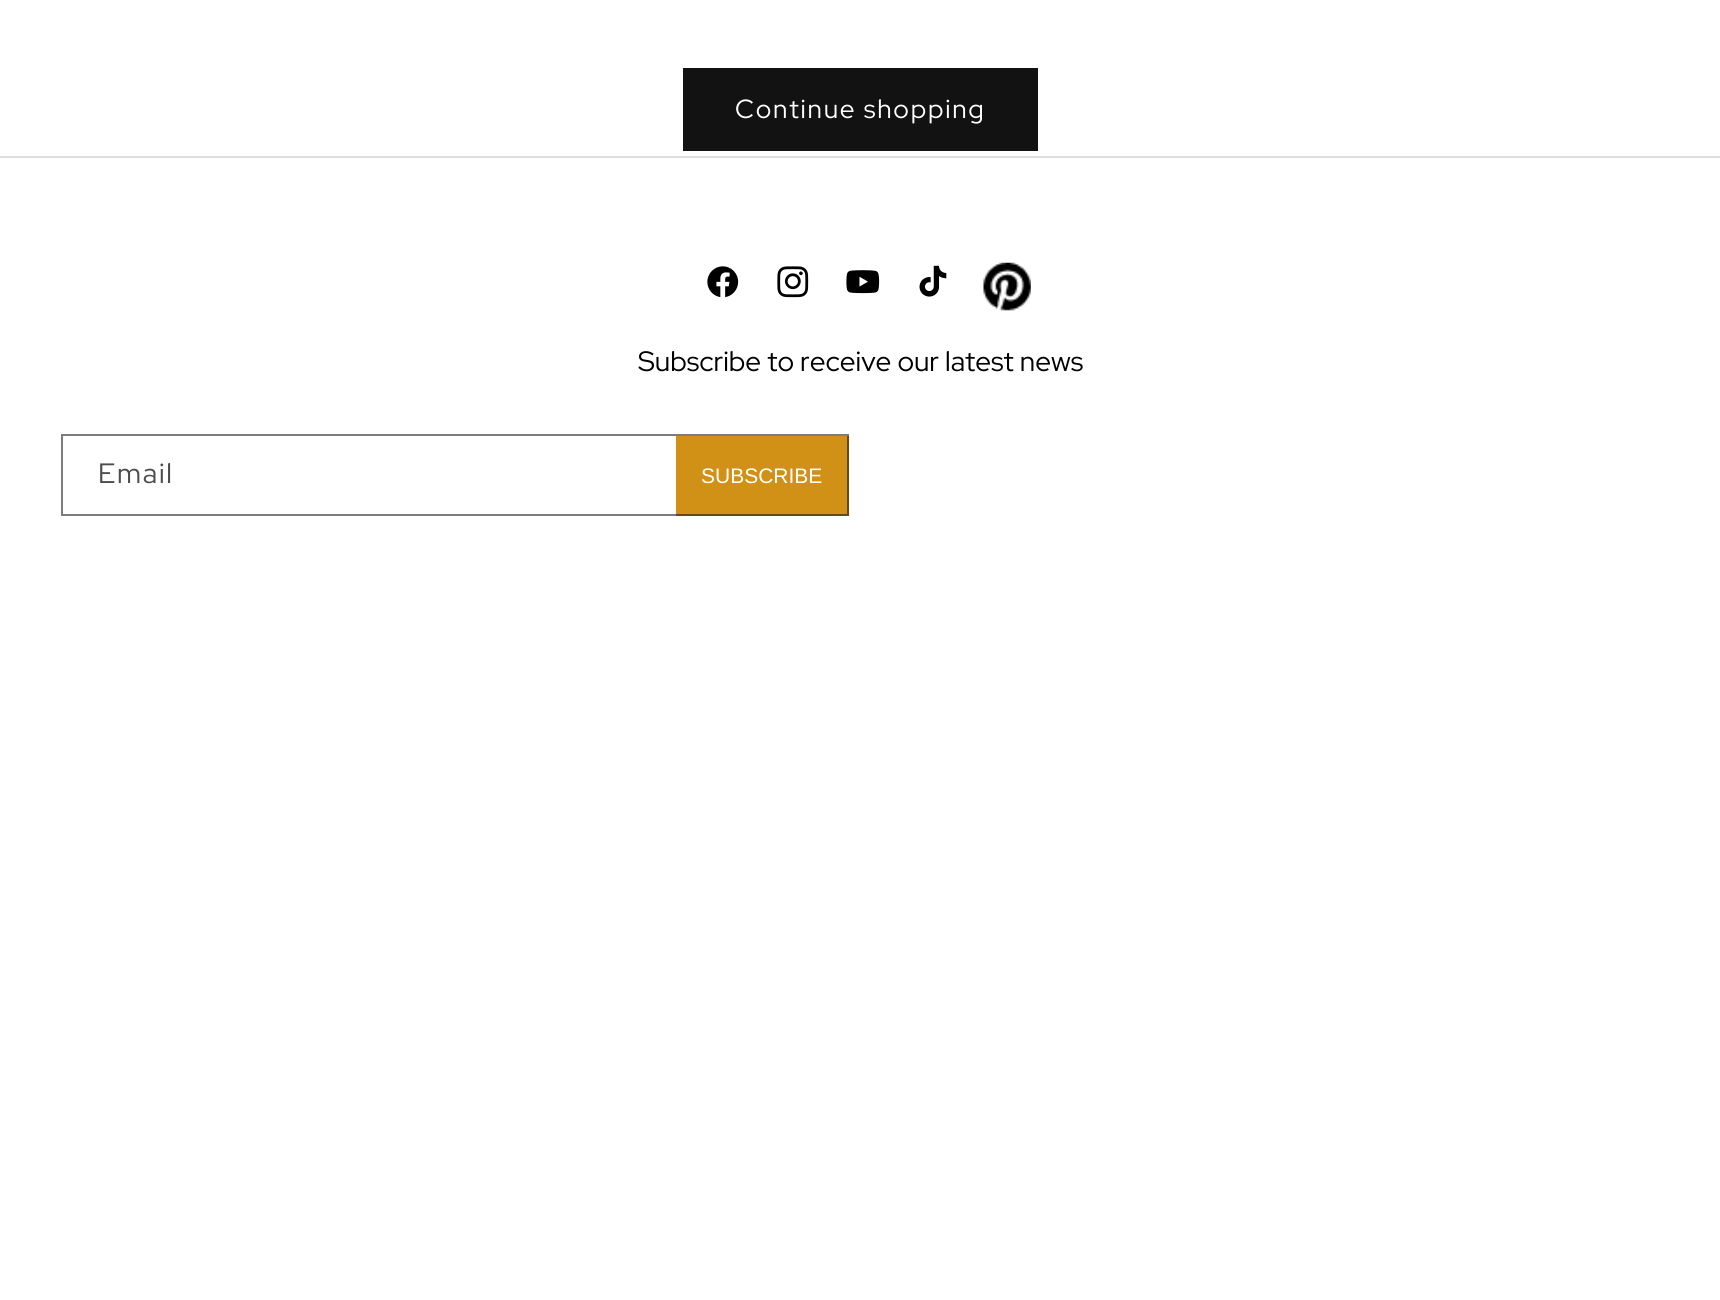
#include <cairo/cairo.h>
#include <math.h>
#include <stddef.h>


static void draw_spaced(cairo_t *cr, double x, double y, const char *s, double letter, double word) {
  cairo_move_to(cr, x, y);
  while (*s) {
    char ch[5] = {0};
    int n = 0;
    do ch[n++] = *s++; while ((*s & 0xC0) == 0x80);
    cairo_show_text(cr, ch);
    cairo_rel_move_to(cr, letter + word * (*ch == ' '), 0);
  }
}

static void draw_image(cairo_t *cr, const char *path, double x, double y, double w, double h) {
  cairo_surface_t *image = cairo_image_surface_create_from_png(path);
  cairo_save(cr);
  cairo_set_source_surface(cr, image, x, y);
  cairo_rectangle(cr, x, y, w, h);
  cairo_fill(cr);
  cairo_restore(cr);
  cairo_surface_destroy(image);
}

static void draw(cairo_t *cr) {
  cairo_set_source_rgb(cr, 1, 1, 1);
  cairo_paint(cr);
  cairo_set_source_rgb(cr, 18 / 255.0, 18 / 255.0, 18 / 255.0);
  cairo_rectangle(cr, 683, 68, 355, 83);
  cairo_fill(cr);
  cairo_set_source_rgb(cr, 221 / 255.0, 221 / 255.0, 221 / 255.0);
  cairo_rectangle(cr, 0, 156, 1720, 2);
  cairo_fill(cr);
  draw_image(cr, "images/1.png", 707, 266, 32, 32);
  draw_image(cr, "images/2.png", 777, 266, 32, 32);
  draw_image(cr, "images/3.png", 846, 270, 34, 24);
  draw_image(cr, "images/4.png", 919, 265, 28, 32);
  draw_image(cr, "images/5.png", 983, 262, 48, 49);
  cairo_set_source_rgb(cr, 209 / 255.0, 145 / 255.0, 22 / 255.0);
  cairo_rectangle(cr, 676, 436, 173, 80);
  cairo_fill(cr);
  cairo_rectangle(cr, 62, 435, 786, 80);
  cairo_set_source_rgba(cr, 18 / 255.0, 18 / 255.0, 18 / 255.0, 0.55);
  cairo_stroke(cr);
  cairo_select_font_face(cr, "Red Hat Display", CAIRO_FONT_SLANT_NORMAL, CAIRO_FONT_WEIGHT_NORMAL);
  cairo_set_font_size(cr, 26.25);
  cairo_set_source_rgb(cr, 1, 1, 1);
  draw_spaced(cr, 735, 118, "Continue shopping", 1.75, 0);
  cairo_set_font_size(cr, 28);
  cairo_set_source_rgb(cr, 0, 0, 0);
  cairo_move_to(cr, 638, 371);
  cairo_show_text(cr, "Subscribe to receive our latest news");
  cairo_set_source_rgb(cr, 77 / 255.0, 77 / 255.0, 77 / 255.0);
  draw_spaced(cr, 98, 483, "Email", 1.75, 0);
  cairo_select_font_face(cr, "Liberation Sans", CAIRO_FONT_SLANT_NORMAL, CAIRO_FONT_WEIGHT_NORMAL);
  cairo_set_font_size(cr, 21);
  cairo_set_source_rgb(cr, 1, 1, 1);
  cairo_move_to(cr, 701, 483);
  cairo_show_text(cr, "SUBSCRIBE");
}

int main(void) {
  cairo_surface_t *surface = cairo_image_surface_create(CAIRO_FORMAT_RGB24, 1720, 1300);
  cairo_t *cr = cairo_create(surface);
  cairo_font_options_t *options = cairo_font_options_create();
  cairo_font_options_set_hint_metrics(options, CAIRO_HINT_METRICS_OFF);
  cairo_font_options_set_hint_style(options, CAIRO_HINT_STYLE_NONE);
  cairo_set_font_options(cr, options);
  cairo_set_miter_limit(cr, 4);
  draw(cr);
  cairo_surface_write_to_png(surface, "out.png");
  cairo_font_options_destroy(options);
  cairo_destroy(cr);
  cairo_surface_destroy(surface);
  return 0;
}
